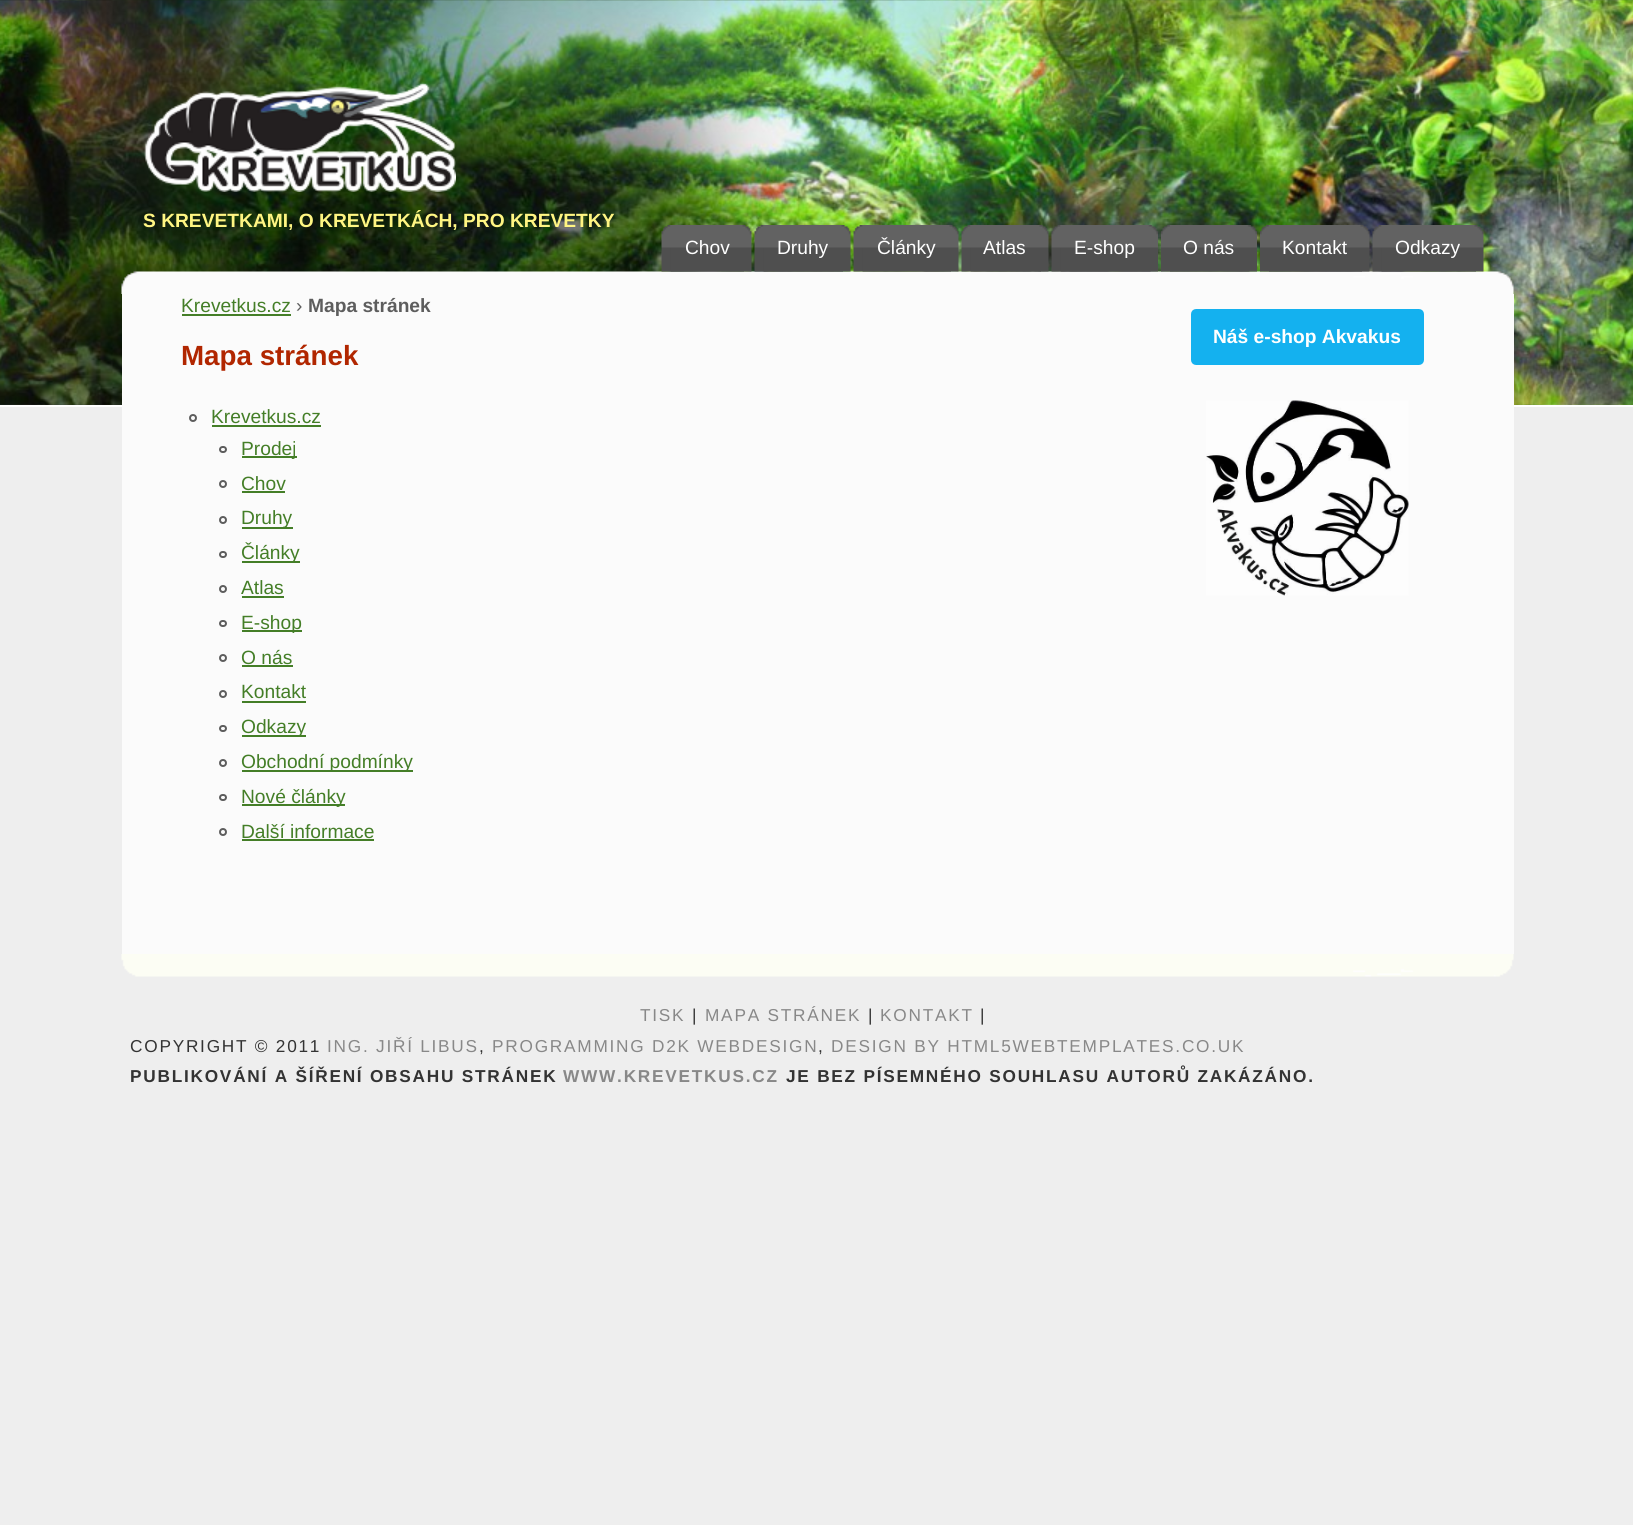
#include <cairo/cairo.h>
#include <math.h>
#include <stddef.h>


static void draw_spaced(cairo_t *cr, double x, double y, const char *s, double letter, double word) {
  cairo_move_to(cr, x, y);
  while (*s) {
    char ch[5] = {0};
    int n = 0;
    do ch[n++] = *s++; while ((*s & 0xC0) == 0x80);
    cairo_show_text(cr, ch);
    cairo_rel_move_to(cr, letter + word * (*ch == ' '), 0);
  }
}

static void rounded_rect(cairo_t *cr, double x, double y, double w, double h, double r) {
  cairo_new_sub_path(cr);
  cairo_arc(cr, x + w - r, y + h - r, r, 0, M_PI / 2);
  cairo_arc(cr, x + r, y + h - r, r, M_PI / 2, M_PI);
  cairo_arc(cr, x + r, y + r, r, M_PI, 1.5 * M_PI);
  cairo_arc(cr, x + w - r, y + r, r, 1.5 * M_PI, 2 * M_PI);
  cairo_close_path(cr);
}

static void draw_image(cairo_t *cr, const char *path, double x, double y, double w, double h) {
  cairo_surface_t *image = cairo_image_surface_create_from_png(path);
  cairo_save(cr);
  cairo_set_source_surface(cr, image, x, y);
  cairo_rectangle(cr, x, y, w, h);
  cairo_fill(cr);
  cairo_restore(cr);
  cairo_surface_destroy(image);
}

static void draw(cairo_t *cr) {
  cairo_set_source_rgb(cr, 238 / 255.0, 238 / 255.0, 238 / 255.0);
  cairo_paint(cr);
  draw_image(cr, "images/1.png", 0, 0, 1633, 405);
  cairo_set_source_rgb(cr, 1, 1, 1);
  cairo_rectangle(cr, 0, 405, 1633, 2);
  cairo_fill(cr);
  draw_image(cr, "images/2.png", 144, 82, 312, 110);
  draw_image(cr, "images/19.png", 121, 271, 1393, 23);
  draw_image(cr, "images/3.png", 661, 225, 83, 47);
  draw_image(cr, "images/4.png", 670, 225, 82, 47);
  draw_image(cr, "images/5.png", 754, 225, 89, 47);
  draw_image(cr, "images/6.png", 763, 225, 88, 47);
  draw_image(cr, "images/7.png", 853, 225, 98, 47);
  draw_image(cr, "images/8.png", 862, 225, 97, 47);
  draw_image(cr, "images/9.png", 961, 225, 80, 47);
  draw_image(cr, "images/10.png", 970, 225, 79, 47);
  draw_image(cr, "images/11.png", 1051, 225, 100, 47);
  draw_image(cr, "images/12.png", 1060, 225, 98, 47);
  draw_image(cr, "images/13.png", 1161, 225, 89, 47);
  draw_image(cr, "images/14.png", 1170, 225, 87, 47);
  draw_image(cr, "images/15.png", 1260, 225, 102, 47);
  draw_image(cr, "images/16.png", 1269, 225, 101, 47);
  draw_image(cr, "images/17.png", 1372, 225, 104, 47);
  draw_image(cr, "images/18.png", 1381, 225, 103, 47);
  cairo_set_source_rgb(cr, 251 / 255.0, 251 / 255.0, 251 / 255.0);
  cairo_rectangle(cr, 122, 294, 1392, 660);
  cairo_fill(cr);
  cairo_set_source_rgb(cr, 68 / 255.0, 126 / 255.0, 39 / 255.0);
  cairo_rectangle(cr, 182, 314, 109, 2);
  cairo_fill(cr);
  cairo_arc(cr, 193, 418, 3, 0, 2 * M_PI);
  cairo_set_source_rgb(cr, 93 / 255.0, 93 / 255.0, 93 / 255.0);
  cairo_stroke(cr);
  cairo_set_source_rgb(cr, 68 / 255.0, 126 / 255.0, 39 / 255.0);
  cairo_rectangle(cr, 212, 425, 109, 2);
  cairo_fill(cr);
  rounded_rect(cr, 220, 447, 6, 5, 2.5);
  cairo_set_source_rgb(cr, 93 / 255.0, 93 / 255.0, 93 / 255.0);
  cairo_stroke(cr);
  cairo_set_source_rgb(cr, 68 / 255.0, 126 / 255.0, 39 / 255.0);
  cairo_rectangle(cr, 242, 456, 55, 2);
  cairo_fill(cr);
  cairo_arc(cr, 223, 484, 3, 0, 2 * M_PI);
  cairo_set_source_rgb(cr, 93 / 255.0, 93 / 255.0, 93 / 255.0);
  cairo_stroke(cr);
  cairo_set_source_rgb(cr, 68 / 255.0, 126 / 255.0, 39 / 255.0);
  cairo_rectangle(cr, 242, 491, 43, 2);
  cairo_fill(cr);
  cairo_arc(cr, 223, 520, 3, 0, 2 * M_PI);
  cairo_set_source_rgb(cr, 93 / 255.0, 93 / 255.0, 93 / 255.0);
  cairo_stroke(cr);
  cairo_set_source_rgb(cr, 68 / 255.0, 126 / 255.0, 39 / 255.0);
  cairo_rectangle(cr, 242, 527, 51, 2);
  cairo_fill(cr);
  rounded_rect(cr, 220, 552, 6, 5, 2.5);
  cairo_set_source_rgb(cr, 93 / 255.0, 93 / 255.0, 93 / 255.0);
  cairo_stroke(cr);
  cairo_set_source_rgb(cr, 68 / 255.0, 126 / 255.0, 39 / 255.0);
  cairo_rectangle(cr, 242, 561, 58, 2);
  cairo_fill(cr);
  cairo_arc(cr, 223, 589, 3, 0, 2 * M_PI);
  cairo_set_source_rgb(cr, 93 / 255.0, 93 / 255.0, 93 / 255.0);
  cairo_stroke(cr);
  cairo_set_source_rgb(cr, 68 / 255.0, 126 / 255.0, 39 / 255.0);
  cairo_rectangle(cr, 242, 596, 42, 2);
  cairo_fill(cr);
  rounded_rect(cr, 220, 621, 6, 5, 2.5);
  cairo_set_source_rgb(cr, 93 / 255.0, 93 / 255.0, 93 / 255.0);
  cairo_stroke(cr);
  cairo_set_source_rgb(cr, 68 / 255.0, 126 / 255.0, 39 / 255.0);
  cairo_rectangle(cr, 242, 630, 60, 2);
  cairo_fill(cr);
  cairo_arc(cr, 223, 658, 3, 0, 2 * M_PI);
  cairo_set_source_rgb(cr, 93 / 255.0, 93 / 255.0, 93 / 255.0);
  cairo_stroke(cr);
  cairo_set_source_rgb(cr, 68 / 255.0, 126 / 255.0, 39 / 255.0);
  cairo_rectangle(cr, 242, 665, 51, 2);
  cairo_fill(cr);
  cairo_arc(cr, 223, 694, 3, 0, 2 * M_PI);
  cairo_set_source_rgb(cr, 93 / 255.0, 93 / 255.0, 93 / 255.0);
  cairo_stroke(cr);
  cairo_set_source_rgb(cr, 68 / 255.0, 126 / 255.0, 39 / 255.0);
  cairo_rectangle(cr, 242, 701, 64, 2);
  cairo_fill(cr);
  rounded_rect(cr, 220, 726, 6, 5, 2.5);
  cairo_set_source_rgb(cr, 93 / 255.0, 93 / 255.0, 93 / 255.0);
  cairo_stroke(cr);
  cairo_set_source_rgb(cr, 68 / 255.0, 126 / 255.0, 39 / 255.0);
  cairo_rectangle(cr, 242, 735, 64, 2);
  cairo_fill(cr);
  cairo_arc(cr, 223, 763, 3, 0, 2 * M_PI);
  cairo_set_source_rgb(cr, 93 / 255.0, 93 / 255.0, 93 / 255.0);
  cairo_stroke(cr);
  cairo_set_source_rgb(cr, 68 / 255.0, 126 / 255.0, 39 / 255.0);
  cairo_rectangle(cr, 242, 770, 171, 2);
  cairo_fill(cr);
  rounded_rect(cr, 220, 795, 6, 5, 2.5);
  cairo_set_source_rgb(cr, 93 / 255.0, 93 / 255.0, 93 / 255.0);
  cairo_stroke(cr);
  cairo_set_source_rgb(cr, 68 / 255.0, 126 / 255.0, 39 / 255.0);
  cairo_rectangle(cr, 242, 804, 103, 2);
  cairo_fill(cr);
  cairo_arc(cr, 223, 832, 3, 0, 2 * M_PI);
  cairo_set_source_rgb(cr, 93 / 255.0, 93 / 255.0, 93 / 255.0);
  cairo_stroke(cr);
  cairo_set_source_rgb(cr, 68 / 255.0, 126 / 255.0, 39 / 255.0);
  cairo_rectangle(cr, 242, 839, 132, 2);
  cairo_fill(cr);
  cairo_set_source_rgb(cr, 20 / 255.0, 177 / 255.0, 239 / 255.0);
  rounded_rect(cr, 1192.5, 310.5, 230, 53, 3.5);
  cairo_fill_preserve(cr);
  cairo_set_line_width(cr, 3);
  cairo_stroke(cr);
  draw_image(cr, "images/20.png", 1206, 400, 203, 196);
  draw_image(cr, "images/21.png", 121, 954, 1393, 23);
  cairo_select_font_face(cr, "Liberation Sans", CAIRO_FONT_SLANT_NORMAL, CAIRO_FONT_WEIGHT_BOLD);
  cairo_set_font_size(cr, 19.2);
  cairo_set_source_rgb(cr, 1, 245 / 255.0, 130 / 255.0);
  cairo_move_to(cr, 143, 227);
  cairo_show_text(cr, "S KREVETKAMI, O KREVETKÁCH, PRO KREVETKY");
  cairo_select_font_face(cr, "Liberation Sans", CAIRO_FONT_SLANT_NORMAL, CAIRO_FONT_WEIGHT_NORMAL);
  cairo_set_source_rgb(cr, 1, 1, 1);
  cairo_move_to(cr, 685, 254);
  cairo_show_text(cr, "Chov");
  cairo_move_to(cr, 777, 254);
  cairo_show_text(cr, "Druhy");
  cairo_move_to(cr, 877, 254);
  cairo_show_text(cr, "Články");
  cairo_move_to(cr, 983, 254);
  cairo_show_text(cr, "Atlas");
  cairo_move_to(cr, 1074, 254);
  cairo_show_text(cr, "E-shop");
  cairo_move_to(cr, 1183, 254);
  cairo_show_text(cr, "O nás");
  cairo_move_to(cr, 1282, 254);
  cairo_show_text(cr, "Kontakt");
  cairo_move_to(cr, 1395, 254);
  cairo_show_text(cr, "Odkazy");
  cairo_set_source_rgb(cr, 68 / 255.0, 126 / 255.0, 39 / 255.0);
  cairo_move_to(cr, 181, 312);
  cairo_show_text(cr, "Krevetkus.cz");
  cairo_set_source_rgb(cr, 93 / 255.0, 93 / 255.0, 93 / 255.0);
  cairo_move_to(cr, 296, 312);
  cairo_show_text(cr, "›");
  cairo_select_font_face(cr, "Liberation Sans", CAIRO_FONT_SLANT_NORMAL, CAIRO_FONT_WEIGHT_BOLD);
  cairo_move_to(cr, 308, 312);
  cairo_show_text(cr, "Mapa stránek");
  cairo_set_font_size(cr, 27.75);
  cairo_set_source_rgb(cr, 177 / 255.0, 38 / 255.0, 0);
  cairo_move_to(cr, 181, 365);
  cairo_show_text(cr, "Mapa stránek");
  cairo_select_font_face(cr, "Liberation Sans", CAIRO_FONT_SLANT_NORMAL, CAIRO_FONT_WEIGHT_NORMAL);
  cairo_set_font_size(cr, 19.2);
  cairo_set_source_rgb(cr, 68 / 255.0, 126 / 255.0, 39 / 255.0);
  cairo_move_to(cr, 211, 423);
  cairo_show_text(cr, "Krevetkus.cz");
  cairo_move_to(cr, 241, 455);
  cairo_show_text(cr, "Prodej");
  cairo_move_to(cr, 241, 490);
  cairo_show_text(cr, "Chov");
  cairo_move_to(cr, 241, 524);
  cairo_show_text(cr, "Druhy");
  cairo_move_to(cr, 241, 559);
  cairo_show_text(cr, "Články");
  cairo_move_to(cr, 241, 594);
  cairo_show_text(cr, "Atlas");
  cairo_move_to(cr, 241, 629);
  cairo_show_text(cr, "E-shop");
  cairo_move_to(cr, 241, 664);
  cairo_show_text(cr, "O nás");
  cairo_move_to(cr, 241, 698);
  cairo_show_text(cr, "Kontakt");
  cairo_move_to(cr, 241, 733);
  cairo_show_text(cr, "Odkazy");
  cairo_move_to(cr, 241, 768);
  cairo_show_text(cr, "Obchodní podmínky");
  cairo_move_to(cr, 241, 803);
  cairo_show_text(cr, "Nové články");
  cairo_move_to(cr, 241, 838);
  cairo_show_text(cr, "Další informace");
  cairo_select_font_face(cr, "Liberation Sans", CAIRO_FONT_SLANT_NORMAL, CAIRO_FONT_WEIGHT_BOLD);
  cairo_set_source_rgb(cr, 1, 1, 1);
  cairo_move_to(cr, 1213, 343);
  cairo_show_text(cr, "Náš e-shop Akvakus");
  cairo_select_font_face(cr, "Liberation Sans", CAIRO_FONT_SLANT_NORMAL, CAIRO_FONT_WEIGHT_NORMAL);
  cairo_set_font_size(cr, 17.25);
  cairo_set_source_rgb(cr, 136 / 255.0, 136 / 255.0, 136 / 255.0);
  draw_spaced(cr, 640, 1021, "TISK", 1.75, 0);
  cairo_set_source_rgb(cr, 51 / 255.0, 51 / 255.0, 51 / 255.0);
  draw_spaced(cr, 692, 1021, "|", 1.75, 0);
  cairo_set_source_rgb(cr, 136 / 255.0, 136 / 255.0, 136 / 255.0);
  draw_spaced(cr, 705, 1021, "MAPA STRÁNEK", 1.75, 0);
  cairo_set_source_rgb(cr, 51 / 255.0, 51 / 255.0, 51 / 255.0);
  draw_spaced(cr, 868, 1021, "|", 1.75, 0);
  cairo_set_source_rgb(cr, 136 / 255.0, 136 / 255.0, 136 / 255.0);
  draw_spaced(cr, 880, 1021, "KONTAKT", 1.75, 0);
  cairo_set_source_rgb(cr, 51 / 255.0, 51 / 255.0, 51 / 255.0);
  draw_spaced(cr, 980, 1021, "|", 1.75, 0);
  draw_spaced(cr, 130, 1052, "COPYRIGHT © 2011", 1.75, 0);
  cairo_set_source_rgb(cr, 136 / 255.0, 136 / 255.0, 136 / 255.0);
  draw_spaced(cr, 327, 1052, "ING. JIŘÍ LIBUS", 1.75, 0);
  cairo_set_source_rgb(cr, 51 / 255.0, 51 / 255.0, 51 / 255.0);
  draw_spaced(cr, 479, 1052, ",", 1.75, 0);
  cairo_set_source_rgb(cr, 136 / 255.0, 136 / 255.0, 136 / 255.0);
  draw_spaced(cr, 492, 1052, "PROGRAMMING D2K WEBDESIGN", 1.75, 0);
  cairo_set_source_rgb(cr, 51 / 255.0, 51 / 255.0, 51 / 255.0);
  draw_spaced(cr, 818, 1052, ",", 1.75, 0);
  cairo_set_source_rgb(cr, 136 / 255.0, 136 / 255.0, 136 / 255.0);
  draw_spaced(cr, 831, 1052, "DESIGN BY HTML5WEBTEMPLATES.CO.UK", 1.75, 0);
  cairo_select_font_face(cr, "Liberation Sans", CAIRO_FONT_SLANT_NORMAL, CAIRO_FONT_WEIGHT_BOLD);
  cairo_set_source_rgb(cr, 51 / 255.0, 51 / 255.0, 51 / 255.0);
  draw_spaced(cr, 130, 1082, "PUBLIKOVÁNÍ A ŠÍŘENÍ OBSAHU STRÁNEK", 1.75, 0);
  cairo_set_source_rgb(cr, 136 / 255.0, 136 / 255.0, 136 / 255.0);
  draw_spaced(cr, 563, 1082, "WWW.KREVETKUS.CZ", 1.75, 0);
  cairo_set_source_rgb(cr, 51 / 255.0, 51 / 255.0, 51 / 255.0);
  draw_spaced(cr, 786, 1082, "JE BEZ PÍSEMNÉHO SOUHLASU AUTORŮ ZAKÁZÁNO.", 1.75, 0);
}

int main(void) {
  cairo_surface_t *surface = cairo_image_surface_create(CAIRO_FORMAT_RGB24, 1633, 1525);
  cairo_t *cr = cairo_create(surface);
  cairo_font_options_t *options = cairo_font_options_create();
  cairo_font_options_set_hint_metrics(options, CAIRO_HINT_METRICS_OFF);
  cairo_font_options_set_hint_style(options, CAIRO_HINT_STYLE_NONE);
  cairo_set_font_options(cr, options);
  cairo_set_miter_limit(cr, 4);
  draw(cr);
  cairo_surface_write_to_png(surface, "out.png");
  cairo_font_options_destroy(options);
  cairo_destroy(cr);
  cairo_surface_destroy(surface);
  return 0;
}
